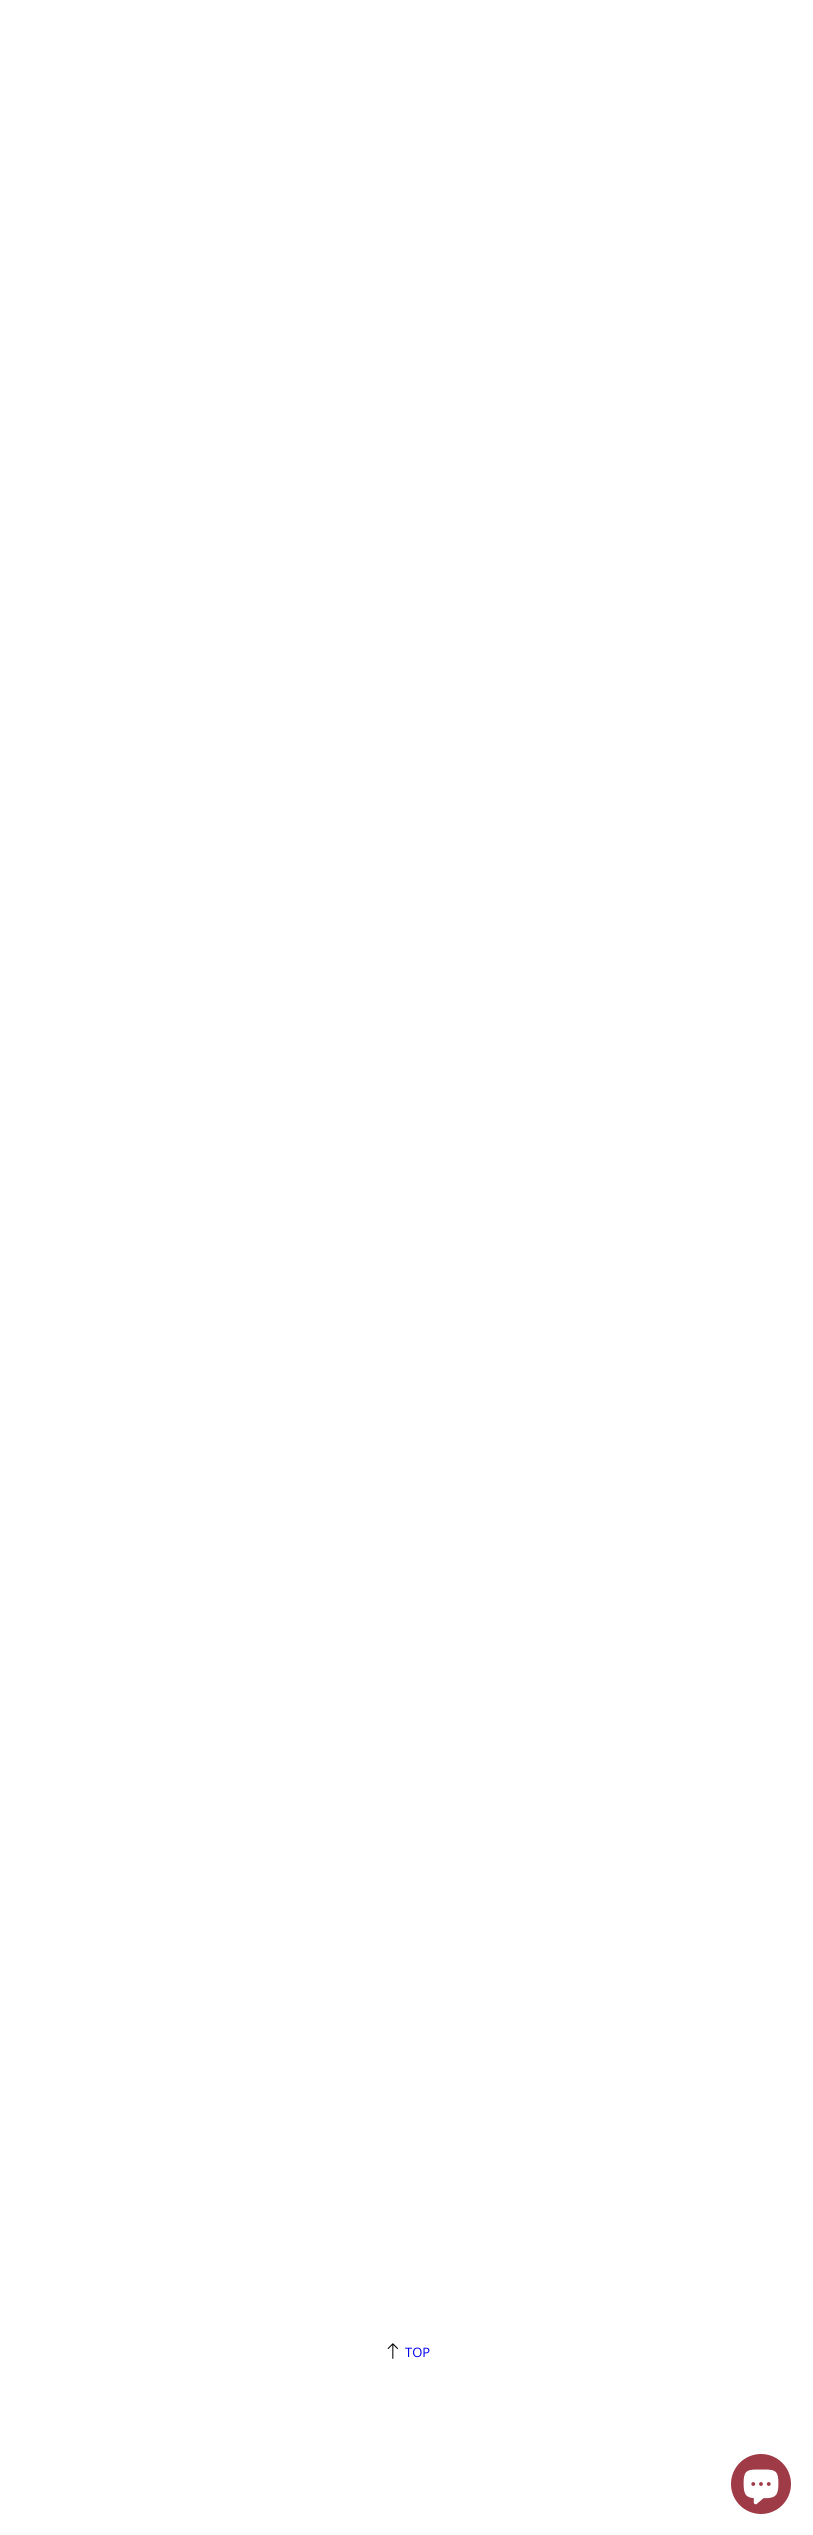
#include <cairo/cairo.h>
#include <math.h>
#include <stddef.h>


static void draw_image(cairo_t *cr, const char *path, double x, double y, double w, double h) {
  cairo_surface_t *image = cairo_image_surface_create_from_png(path);
  cairo_save(cr);
  cairo_set_source_surface(cr, image, x, y);
  cairo_rectangle(cr, x, y, w, h);
  cairo_fill(cr);
  cairo_restore(cr);
  cairo_surface_destroy(image);
}

static void draw(cairo_t *cr) {
  cairo_set_source_rgb(cr, 1, 1, 1);
  cairo_paint(cr);
  draw_image(cr, "images/1.png", 387, 2343, 11, 16);
  cairo_set_source_rgb(cr, 159 / 255.0, 59 / 255.0, 71 / 255.0);
  cairo_arc(cr, 761, 2484, 30, 0, 2 * M_PI);
  cairo_fill(cr);
  draw_image(cr, "images/2.png", 743, 2469, 36, 36);
  cairo_select_font_face(cr, "Open Sans", CAIRO_FONT_SLANT_NORMAL, CAIRO_FONT_WEIGHT_NORMAL);
  cairo_set_font_size(cr, 13);
  cairo_set_source_rgb(cr, 0, 0, 238 / 255.0);
  cairo_move_to(cr, 405, 2357);
  cairo_show_text(cr, "TOP");
}

int main(void) {
  cairo_surface_t *surface = cairo_image_surface_create(CAIRO_FORMAT_RGB24, 813, 2535);
  cairo_t *cr = cairo_create(surface);
  cairo_font_options_t *options = cairo_font_options_create();
  cairo_font_options_set_hint_metrics(options, CAIRO_HINT_METRICS_OFF);
  cairo_font_options_set_hint_style(options, CAIRO_HINT_STYLE_NONE);
  cairo_set_font_options(cr, options);
  cairo_set_miter_limit(cr, 4);
  draw(cr);
  cairo_surface_write_to_png(surface, "out.png");
  cairo_font_options_destroy(options);
  cairo_destroy(cr);
  cairo_surface_destroy(surface);
  return 0;
}
